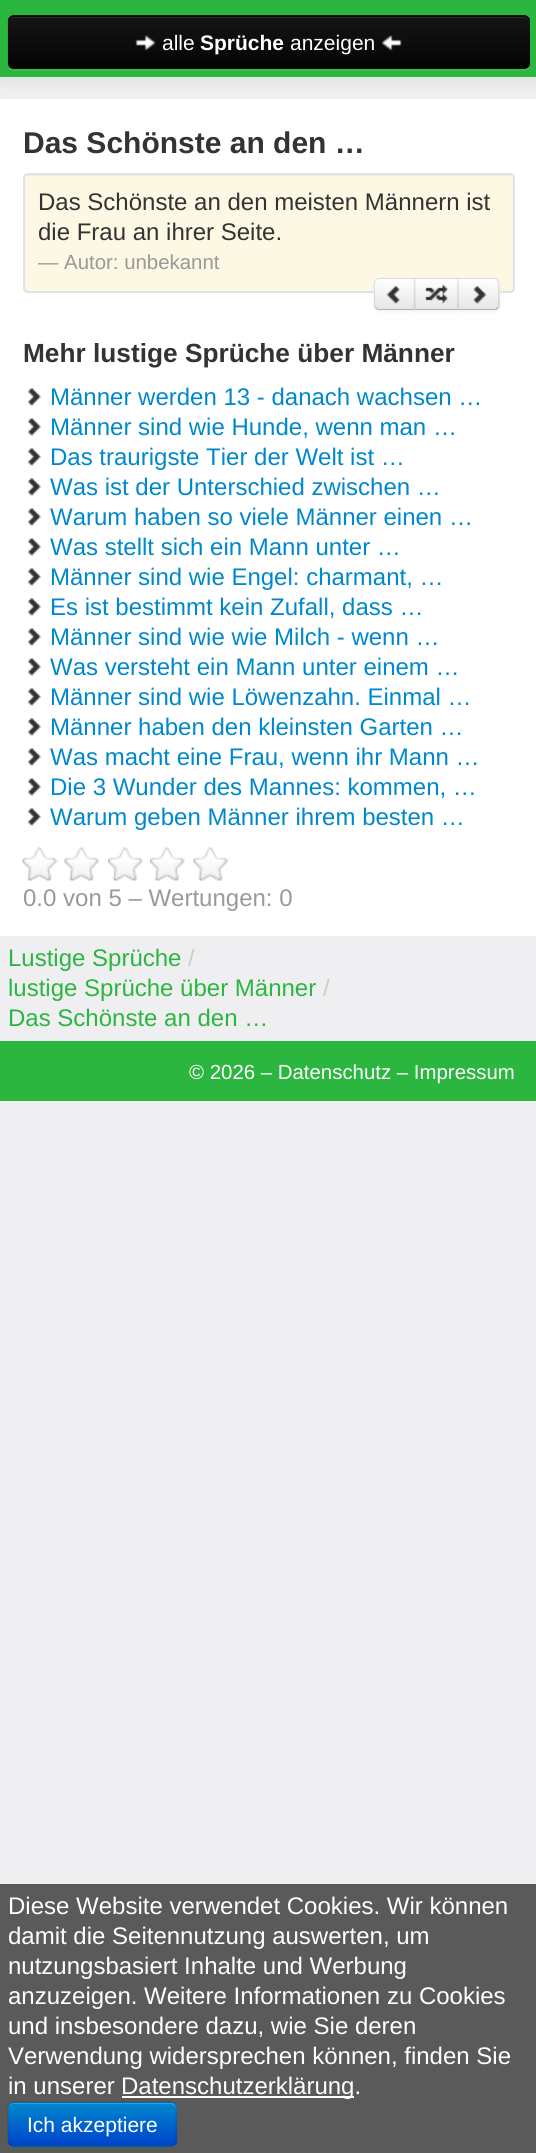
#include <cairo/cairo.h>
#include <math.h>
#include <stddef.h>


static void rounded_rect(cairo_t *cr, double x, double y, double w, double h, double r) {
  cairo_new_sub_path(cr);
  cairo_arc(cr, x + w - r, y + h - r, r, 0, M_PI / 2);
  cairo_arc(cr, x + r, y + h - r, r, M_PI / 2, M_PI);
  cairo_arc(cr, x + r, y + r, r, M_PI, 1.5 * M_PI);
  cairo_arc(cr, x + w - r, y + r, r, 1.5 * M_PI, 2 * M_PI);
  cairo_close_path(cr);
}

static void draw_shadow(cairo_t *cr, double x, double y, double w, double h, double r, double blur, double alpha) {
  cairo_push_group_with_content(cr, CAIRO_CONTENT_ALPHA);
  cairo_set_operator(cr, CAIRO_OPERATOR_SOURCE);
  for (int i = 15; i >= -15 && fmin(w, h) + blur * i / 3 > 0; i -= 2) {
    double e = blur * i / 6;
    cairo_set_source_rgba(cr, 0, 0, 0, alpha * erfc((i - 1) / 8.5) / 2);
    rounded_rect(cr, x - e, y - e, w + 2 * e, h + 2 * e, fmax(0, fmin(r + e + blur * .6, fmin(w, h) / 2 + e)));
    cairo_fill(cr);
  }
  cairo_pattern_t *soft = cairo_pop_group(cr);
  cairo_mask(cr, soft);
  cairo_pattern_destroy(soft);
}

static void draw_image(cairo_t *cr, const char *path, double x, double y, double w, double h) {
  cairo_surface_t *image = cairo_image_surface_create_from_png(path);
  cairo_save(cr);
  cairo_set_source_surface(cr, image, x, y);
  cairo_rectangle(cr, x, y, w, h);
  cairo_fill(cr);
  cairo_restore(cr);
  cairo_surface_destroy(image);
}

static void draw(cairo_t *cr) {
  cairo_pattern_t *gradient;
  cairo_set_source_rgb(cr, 239 / 255.0, 239 / 255.0, 241 / 255.0);
  cairo_paint(cr);
  cairo_set_source_rgb(cr, 1, 1, 1);
  cairo_rectangle(cr, 0, 99, 536, 837);
  cairo_fill(cr);
  cairo_set_source_rgb(cr, 0, 0, 0);
  draw_shadow(cr, 0, 2, 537, 76, 0, 7.5, 0.1);
  cairo_set_source_rgb(cr, 43 / 255.0, 182 / 255.0, 64 / 255.0);
  cairo_rectangle(cr, 0, 0, 536, 77);
  cairo_fill(cr);
  cairo_set_source_rgb(cr, 59 / 255.0, 187 / 255.0, 78 / 255.0);
  cairo_new_path(cr);
  cairo_move_to(cr, 8, 65);
  cairo_curve_to(cr, 8, 69, 11, 71, 14, 71);
  cairo_line_to(cr, 524, 71);
  cairo_curve_to(cr, 527, 71, 530, 68, 530, 65);
  cairo_line_to(cr, 530, 23);
  cairo_line_to(cr, 529, 21);
  cairo_line_to(cr, 530, 63);
  cairo_curve_to(cr, 530, 66, 527, 69, 524, 69);
  cairo_line_to(cr, 14, 69);
  cairo_curve_to(cr, 11, 69, 9, 68, 8, 65);
  cairo_close_path(cr);
  cairo_fill(cr);
  cairo_set_source_rgb(cr, 14 / 255.0, 14 / 255.0, 14 / 255.0);
  rounded_rect(cr, 8, 15, 522, 54, 6);
  cairo_fill(cr);
  cairo_save(cr);
  rounded_rect(cr, 8, 15, 522, 54, 6);
  cairo_clip(cr);
  gradient = cairo_pattern_create_linear(269, 16, 269, 68);
  cairo_pattern_add_color_stop_rgba(gradient, 0, 21 / 255.0, 21 / 255.0, 21 / 255.0, 1);
  cairo_pattern_add_color_stop_rgba(gradient, 1, 4 / 255.0, 4 / 255.0, 4 / 255.0, 1);
  cairo_set_source(cr, gradient);
  cairo_pattern_destroy(gradient);
  cairo_rectangle(cr, 8, 17, 522, 51);
  cairo_fill(cr);
  cairo_restore(cr);
  cairo_set_source_rgb(cr, 44 / 255.0, 44 / 255.0, 44 / 255.0);
  cairo_new_path(cr);
  cairo_move_to(cr, 14, 18);
  cairo_line_to(cr, 524, 18);
  cairo_curve_to(cr, 526, 18, 528, 20, 528, 22);
  cairo_curve_to(cr, 528, 19, 526, 17, 523, 17);
  cairo_line_to(cr, 14, 17);
  cairo_curve_to(cr, 11, 17, 9, 19, 9, 22);
  cairo_curve_to(cr, 9, 20, 11, 18, 14, 18);
  cairo_close_path(cr);
  cairo_fill(cr);
  cairo_new_path(cr);
  cairo_move_to(cr, 527, 66.5);
  cairo_curve_to(cr, 526, 67.5, 525, 68, 523.5, 68);
  cairo_line_to(cr, 13.5, 68);
  cairo_curve_to(cr, 12, 68, 11, 67.5, 10, 66.5);
  cairo_set_source_rgba(cr, 0, 0, 0, 0.25);
  cairo_set_line_width(cr, 1.5);
  cairo_stroke(cr);
  cairo_new_path(cr);
  cairo_move_to(cr, 10, 66.5);
  cairo_curve_to(cr, 9, 65.5, 8, 64.5, 8, 63);
  cairo_line_to(cr, 8, 21);
  cairo_curve_to(cr, 8, 19.5, 9, 18.5, 10, 17.5);
  cairo_curve_to(cr, 11, 16.5, 12, 16, 13.5, 16);
  cairo_line_to(cr, 523.5, 16);
  cairo_curve_to(cr, 525, 16, 526, 16.5, 527, 17.5);
  cairo_curve_to(cr, 528, 18.5, 529, 19.5, 529, 21);
  cairo_line_to(cr, 529, 63);
  cairo_curve_to(cr, 529, 64.5, 528, 65.5, 527, 66.5);
  cairo_set_source_rgba(cr, 0, 0, 0, 0.1);
  cairo_stroke(cr);
  draw_image(cr, "images/1.png", 135, 35, 21, 16);
  draw_image(cr, "images/2.png", 381, 35, 21, 16);
  cairo_set_source_rgb(cr, 252 / 255.0, 248 / 255.0, 227 / 255.0);
  rounded_rect(cr, 23, 173, 492, 120, 5);
  cairo_fill(cr);
  cairo_set_source_rgb(cr, 239 / 255.0, 236 / 255.0, 216 / 255.0);
  cairo_new_path(cr);
  cairo_move_to(cr, 27, 176);
  cairo_line_to(cr, 510, 176);
  cairo_curve_to(cr, 512, 176, 513, 177, 513, 178);
  cairo_line_to(cr, 513, 177);
  cairo_curve_to(cr, 513, 175, 512, 174, 510, 174);
  cairo_line_to(cr, 27, 174);
  cairo_curve_to(cr, 25, 174, 24, 175, 24, 177);
  cairo_line_to(cr, 24, 178);
  cairo_curve_to(cr, 24, 177, 25, 176, 27, 176);
  cairo_close_path(cr);
  cairo_fill(cr);
  rounded_rect(cr, 24, 174, 490, 118, 4);
  cairo_set_source_rgb(cr, 227 / 255.0, 227 / 255.0, 227 / 255.0);
  cairo_set_line_width(cr, 2);
  cairo_stroke(cr);
  cairo_set_source_rgb(cr, 0, 0, 0);
  draw_shadow(cr, 374, 279, 42, 33, 6, 1.5, 0.05);
  cairo_set_source_rgb(cr, 245 / 255.0, 245 / 255.0, 245 / 255.0);
  cairo_new_path(cr);
  cairo_move_to(cr, 380, 278);
  cairo_line_to(cr, 416, 278);
  cairo_line_to(cr, 416, 311);
  cairo_line_to(cr, 380, 311);
  cairo_curve_to(cr, 376.5, 311, 374, 308.5, 374, 305);
  cairo_line_to(cr, 374, 284);
  cairo_curve_to(cr, 374, 280.5, 376.5, 278, 380, 278);
  cairo_close_path(cr);
  cairo_fill(cr);
  cairo_save(cr);
  cairo_new_path(cr);
  cairo_move_to(cr, 380, 278);
  cairo_line_to(cr, 416, 278);
  cairo_line_to(cr, 416, 311);
  cairo_line_to(cr, 380, 311);
  cairo_curve_to(cr, 376.5, 311, 374, 308.5, 374, 305);
  cairo_line_to(cr, 374, 284);
  cairo_curve_to(cr, 374, 280.5, 376.5, 278, 380, 278);
  cairo_close_path(cr);
  cairo_clip(cr);
  gradient = cairo_pattern_create_linear(395, 279, 395, 309);
  cairo_pattern_add_color_stop_rgba(gradient, 0, 1, 1, 1, 1);
  cairo_pattern_add_color_stop_rgba(gradient, 1, 230 / 255.0, 230 / 255.0, 230 / 255.0, 1);
  cairo_set_source(cr, gradient);
  cairo_pattern_destroy(gradient);
  cairo_rectangle(cr, 374, 279, 40, 30);
  cairo_fill(cr);
  cairo_restore(cr);
  cairo_set_source_rgba(cr, 0, 0, 0, 0.1);
  cairo_new_path(cr);
  cairo_move_to(cr, 380, 278);
  cairo_curve_to(cr, 378, 278, 376.5, 278.5, 375.5, 279.5);
  cairo_line_to(cr, 376.5, 280.5);
  cairo_curve_to(cr, 377, 279.5, 378.5, 279, 380, 279);
  cairo_line_to(cr, 414, 279);
  cairo_line_to(cr, 415, 278);
  cairo_close_path(cr);
  cairo_fill(cr);
  cairo_set_source_rgb(cr, 179 / 255.0, 179 / 255.0, 179 / 255.0);
  cairo_new_path(cr);
  cairo_move_to(cr, 415, 310);
  cairo_line_to(cr, 380, 310);
  cairo_curve_to(cr, 378, 310, 376.5, 309.5, 375.5, 308.5);
  cairo_line_to(cr, 376.5, 307.5);
  cairo_curve_to(cr, 377, 308.5, 378.5, 309, 380, 309);
  cairo_line_to(cr, 414, 309);
  cairo_close_path(cr);
  cairo_fill(cr);
  cairo_set_source_rgba(cr, 0, 0, 0, 0.1);
  cairo_new_path(cr);
  cairo_move_to(cr, 375.5, 279.5);
  cairo_curve_to(cr, 374.5, 280.5, 374, 282, 374, 284);
  cairo_line_to(cr, 374, 304);
  cairo_curve_to(cr, 374, 306, 374.5, 307.5, 375.5, 308.5);
  cairo_line_to(cr, 376.5, 307.5);
  cairo_curve_to(cr, 375.5, 307, 375, 305.5, 375, 304);
  cairo_line_to(cr, 375, 284);
  cairo_curve_to(cr, 375, 282.5, 375.5, 281, 376.5, 280.5);
  cairo_close_path(cr);
  cairo_fill(cr);
  draw_image(cr, "images/3.png", 386, 286, 14, 18);
  cairo_set_source_rgb(cr, 0, 0, 0);
  draw_shadow(cr, 414, 279, 45, 33, 0, 1.5, 0.05);
  cairo_set_source_rgb(cr, 245 / 255.0, 245 / 255.0, 245 / 255.0);
  cairo_rectangle(cr, 414, 278, 44, 33);
  cairo_fill(cr);
  gradient = cairo_pattern_create_linear(437, 279, 437, 309);
  cairo_pattern_add_color_stop_rgba(gradient, 0, 1, 1, 1, 1);
  cairo_pattern_add_color_stop_rgba(gradient, 1, 230 / 255.0, 230 / 255.0, 230 / 255.0, 1);
  cairo_set_source(cr, gradient);
  cairo_pattern_destroy(gradient);
  cairo_rectangle(cr, 414, 279, 44, 30);
  cairo_fill(cr);
  cairo_set_source_rgb(cr, 221 / 255.0, 221 / 255.0, 221 / 255.0);
  cairo_new_path(cr);
  cairo_move_to(cr, 414, 278);
  cairo_line_to(cr, 459, 278);
  cairo_line_to(cr, 458, 279);
  cairo_line_to(cr, 416, 279);
  cairo_close_path(cr);
  cairo_fill(cr);
  cairo_set_source_rgba(cr, 0, 0, 0, 0.1);
  cairo_new_path(cr);
  cairo_move_to(cr, 459, 277.5);
  cairo_line_to(cr, 459, 310.5);
  cairo_line_to(cr, 457.5, 309);
  cairo_line_to(cr, 457.5, 279);
  cairo_close_path(cr);
  cairo_fill(cr);
  cairo_set_source_rgb(cr, 179 / 255.0, 179 / 255.0, 179 / 255.0);
  cairo_new_path(cr);
  cairo_move_to(cr, 459, 310);
  cairo_line_to(cr, 414, 310);
  cairo_line_to(cr, 416, 309);
  cairo_line_to(cr, 458, 309);
  cairo_close_path(cr);
  cairo_fill(cr);
  cairo_set_source_rgba(cr, 0, 0, 0, 0.1);
  cairo_new_path(cr);
  cairo_move_to(cr, 414, 310.5);
  cairo_line_to(cr, 414, 277.5);
  cairo_line_to(cr, 415.5, 279);
  cairo_line_to(cr, 415.5, 309);
  cairo_close_path(cr);
  cairo_fill(cr);
  draw_image(cr, "images/4.png", 425, 284, 23, 20);
  cairo_set_source_rgb(cr, 0, 0, 0);
  draw_shadow(cr, 458, 279, 42, 33, 6, 1.5, 0.05);
  cairo_set_source_rgb(cr, 245 / 255.0, 245 / 255.0, 245 / 255.0);
  cairo_new_path(cr);
  cairo_move_to(cr, 458, 278);
  cairo_line_to(cr, 494, 278);
  cairo_curve_to(cr, 497.5, 278, 500, 280.5, 500, 284);
  cairo_line_to(cr, 500, 305);
  cairo_curve_to(cr, 500, 308.5, 497.5, 311, 494, 311);
  cairo_line_to(cr, 458, 311);
  cairo_close_path(cr);
  cairo_fill(cr);
  cairo_save(cr);
  cairo_new_path(cr);
  cairo_move_to(cr, 458, 278);
  cairo_line_to(cr, 494, 278);
  cairo_curve_to(cr, 497.5, 278, 500, 280.5, 500, 284);
  cairo_line_to(cr, 500, 305);
  cairo_curve_to(cr, 500, 308.5, 497.5, 311, 494, 311);
  cairo_line_to(cr, 458, 311);
  cairo_close_path(cr);
  cairo_clip(cr);
  gradient = cairo_pattern_create_linear(479, 279, 479, 309);
  cairo_pattern_add_color_stop_rgba(gradient, 0, 1, 1, 1, 1);
  cairo_pattern_add_color_stop_rgba(gradient, 1, 230 / 255.0, 230 / 255.0, 230 / 255.0, 1);
  cairo_set_source(cr, gradient);
  cairo_pattern_destroy(gradient);
  cairo_rectangle(cr, 458, 279, 42, 30);
  cairo_fill(cr);
  cairo_restore(cr);
  cairo_set_source_rgba(cr, 0, 0, 0, 0.1);
  cairo_new_path(cr);
  cairo_move_to(cr, 458, 278);
  cairo_line_to(cr, 459, 279);
  cairo_line_to(cr, 494, 279);
  cairo_curve_to(cr, 495, 279, 496, 279.5, 496.5, 280.5);
  cairo_line_to(cr, 498, 279);
  cairo_curve_to(cr, 496.5, 278.5, 495.5, 278, 494, 278);
  cairo_close_path(cr);
  cairo_fill(cr);
  cairo_new_path(cr);
  cairo_move_to(cr, 498, 279);
  cairo_line_to(cr, 499.5, 281.5);
  cairo_line_to(cr, 499.5, 306.5);
  cairo_line_to(cr, 498, 309);
  cairo_line_to(cr, 496.5, 307.5);
  cairo_curve_to(cr, 497.5, 307, 498, 305.5, 498, 304);
  cairo_line_to(cr, 498, 284);
  cairo_curve_to(cr, 498, 282.5, 497.5, 281, 496.5, 280.5);
  cairo_close_path(cr);
  cairo_fill(cr);
  cairo_set_source_rgb(cr, 179 / 255.0, 179 / 255.0, 179 / 255.0);
  cairo_new_path(cr);
  cairo_move_to(cr, 498, 309);
  cairo_curve_to(cr, 496.5, 309.5, 495.5, 310, 494, 310);
  cairo_line_to(cr, 458, 310);
  cairo_line_to(cr, 459, 309);
  cairo_line_to(cr, 494, 309);
  cairo_curve_to(cr, 495, 309, 496, 308.5, 496.5, 307.5);
  cairo_close_path(cr);
  cairo_fill(cr);
  cairo_set_source_rgba(cr, 0, 0, 0, 0.1);
  cairo_new_path(cr);
  cairo_move_to(cr, 459, 279);
  cairo_line_to(cr, 458, 278);
  cairo_line_to(cr, 458, 310);
  cairo_line_to(cr, 459, 309);
  cairo_close_path(cr);
  cairo_fill(cr);
  draw_image(cr, "images/5.png", 473, 286, 14, 18);
  draw_image(cr, "images/6.png", 28, 388, 13, 19);
  draw_image(cr, "images/6.png", 28, 418, 13, 19);
  draw_image(cr, "images/6.png", 28, 448, 13, 19);
  draw_image(cr, "images/6.png", 28, 478, 13, 19);
  draw_image(cr, "images/6.png", 28, 508, 13, 19);
  draw_image(cr, "images/6.png", 28, 538, 13, 19);
  draw_image(cr, "images/6.png", 28, 568, 13, 19);
  draw_image(cr, "images/6.png", 28, 598, 13, 19);
  draw_image(cr, "images/6.png", 28, 628, 13, 19);
  draw_image(cr, "images/6.png", 28, 658, 13, 19);
  draw_image(cr, "images/6.png", 28, 688, 13, 19);
  draw_image(cr, "images/6.png", 28, 718, 13, 19);
  draw_image(cr, "images/6.png", 28, 748, 13, 19);
  draw_image(cr, "images/6.png", 28, 778, 13, 19);
  draw_image(cr, "images/6.png", 28, 808, 13, 19);
  draw_image(cr, "images/7.png", 22, 847, 36, 34);
  draw_image(cr, "images/7.png", 64, 847, 36, 34);
  draw_image(cr, "images/8.png", 108, 847, 35, 34);
  draw_image(cr, "images/8.png", 150, 847, 35, 34);
  draw_image(cr, "images/7.png", 193, 847, 36, 34);
  cairo_set_source_rgb(cr, 43 / 255.0, 182 / 255.0, 64 / 255.0);
  cairo_rectangle(cr, 0, 1041, 536, 60);
  cairo_fill(cr);
  cairo_set_source_rgb(cr, 90 / 255.0, 90 / 255.0, 90 / 255.0);
  cairo_rectangle(cr, 0, 1884, 536, 269);
  cairo_fill(cr);
  cairo_set_source_rgb(cr, 1, 1, 1);
  cairo_rectangle(cr, 122, 2096, 232, 2);
  cairo_fill(cr);
  cairo_set_source_rgb(cr, 0, 109 / 255.0, 204 / 255.0);
  rounded_rect(cr, 8, 2102, 169, 45, 6);
  cairo_fill(cr);
  cairo_save(cr);
  rounded_rect(cr, 8, 2102, 169, 45, 6);
  cairo_clip(cr);
  gradient = cairo_pattern_create_linear(92, 2103, 92, 2145);
  cairo_pattern_add_color_stop_rgba(gradient, 0, 0, 136 / 255.0, 204 / 255.0, 1);
  cairo_pattern_add_color_stop_rgba(gradient, 1, 0, 68 / 255.0, 204 / 255.0, 1);
  cairo_set_source(cr, gradient);
  cairo_pattern_destroy(gradient);
  cairo_rectangle(cr, 8, 2103, 169, 42);
  cairo_fill(cr);
  cairo_restore(cr);
  cairo_set_source_rgba(cr, 1, 1, 1, 0.2);
  cairo_new_path(cr);
  cairo_move_to(cr, 14, 2104);
  cairo_line_to(cr, 171, 2104);
  cairo_curve_to(cr, 173, 2104, 176, 2107, 176, 2109);
  cairo_curve_to(cr, 176, 2106, 175, 2104, 172, 2103);
  cairo_line_to(cr, 14, 2103);
  cairo_curve_to(cr, 11, 2103, 9, 2106, 9, 2109);
  cairo_curve_to(cr, 9, 2107, 11, 2104, 14, 2104);
  cairo_close_path(cr);
  cairo_fill(cr);
  cairo_new_path(cr);
  cairo_move_to(cr, 174.5, 2144);
  cairo_curve_to(cr, 173.5, 2145, 172.5, 2146, 171, 2146);
  cairo_line_to(cr, 13.5, 2146);
  cairo_curve_to(cr, 12, 2146, 11, 2145, 10, 2144);
  cairo_set_source_rgba(cr, 0, 0, 0, 0.25);
  cairo_set_line_width(cr, 1.5);
  cairo_stroke(cr);
  cairo_new_path(cr);
  cairo_move_to(cr, 10, 2144);
  cairo_curve_to(cr, 6.5, 2141, 8, 2133, 8, 2129.5);
  cairo_curve_to(cr, 8, 2096, 3, 2102, 40, 2102);
  cairo_line_to(cr, 145, 2102);
  cairo_curve_to(cr, 181.5, 2102, 176, 2096, 176, 2129.5);
  cairo_curve_to(cr, 176, 2133, 178, 2141, 174.5, 2144);
  cairo_set_source_rgba(cr, 0, 0, 0, 0.1);
  cairo_stroke(cr);
  cairo_select_font_face(cr, "Liberation Sans", CAIRO_FONT_SLANT_NORMAL, CAIRO_FONT_WEIGHT_NORMAL);
  cairo_set_font_size(cr, 21);
  cairo_set_source_rgb(cr, 1, 1, 1);
  cairo_move_to(cr, 162, 50);
  cairo_show_text(cr, "alle");
  cairo_select_font_face(cr, "Liberation Sans", CAIRO_FONT_SLANT_NORMAL, CAIRO_FONT_WEIGHT_BOLD);
  cairo_move_to(cr, 200, 50);
  cairo_show_text(cr, "Sprüche");
  cairo_select_font_face(cr, "Liberation Sans", CAIRO_FONT_SLANT_NORMAL, CAIRO_FONT_WEIGHT_NORMAL);
  cairo_move_to(cr, 290, 50);
  cairo_show_text(cr, "anzeigen");
  cairo_select_font_face(cr, "Liberation Sans", CAIRO_FONT_SLANT_NORMAL, CAIRO_FONT_WEIGHT_BOLD);
  cairo_set_font_size(cr, 30);
  cairo_set_source_rgb(cr, 51 / 255.0, 51 / 255.0, 51 / 255.0);
  cairo_move_to(cr, 23, 153);
  cairo_show_text(cr, "Das Schönste an den …");
  cairo_select_font_face(cr, "Liberation Sans", CAIRO_FONT_SLANT_NORMAL, CAIRO_FONT_WEIGHT_NORMAL);
  cairo_set_font_size(cr, 24);
  cairo_move_to(cr, 38, 210);
  cairo_show_text(cr, "Das Schönste an den meisten Männern ist");
  cairo_move_to(cr, 38, 240);
  cairo_show_text(cr, "die Frau an ihrer Seite.");
  cairo_set_font_size(cr, 20.4);
  cairo_set_source_rgb(cr, 153 / 255.0, 153 / 255.0, 153 / 255.0);
  cairo_move_to(cr, 38, 269);
  cairo_show_text(cr, "— Autor: unbekannt");
  cairo_select_font_face(cr, "Liberation Sans", CAIRO_FONT_SLANT_NORMAL, CAIRO_FONT_WEIGHT_BOLD);
  cairo_set_font_size(cr, 26.25);
  cairo_set_source_rgb(cr, 51 / 255.0, 51 / 255.0, 51 / 255.0);
  cairo_move_to(cr, 23, 362);
  cairo_show_text(cr, "Mehr lustige Sprüche über Männer");
  cairo_select_font_face(cr, "Liberation Sans", CAIRO_FONT_SLANT_NORMAL, CAIRO_FONT_WEIGHT_NORMAL);
  cairo_set_font_size(cr, 24);
  cairo_set_source_rgb(cr, 0, 136 / 255.0, 204 / 255.0);
  cairo_move_to(cr, 50, 405);
  cairo_show_text(cr, "Männer werden 13 - danach wachsen …");
  cairo_move_to(cr, 50, 435);
  cairo_show_text(cr, "Männer sind wie Hunde, wenn man …");
  cairo_move_to(cr, 50, 465);
  cairo_show_text(cr, "Das traurigste Tier der Welt ist …");
  cairo_move_to(cr, 50, 495);
  cairo_show_text(cr, "Was ist der Unterschied zwischen …");
  cairo_move_to(cr, 50, 525);
  cairo_show_text(cr, "Warum haben so viele Männer einen …");
  cairo_move_to(cr, 50, 555);
  cairo_show_text(cr, "Was stellt sich ein Mann unter …");
  cairo_move_to(cr, 50, 585);
  cairo_show_text(cr, "Männer sind wie Engel: charmant, …");
  cairo_move_to(cr, 50, 615);
  cairo_show_text(cr, "Es ist bestimmt kein Zufall, dass …");
  cairo_move_to(cr, 50, 645);
  cairo_show_text(cr, "Männer sind wie wie Milch - wenn …");
  cairo_move_to(cr, 50, 675);
  cairo_show_text(cr, "Was versteht ein Mann unter einem …");
  cairo_move_to(cr, 50, 705);
  cairo_show_text(cr, "Männer sind wie Löwenzahn. Einmal …");
  cairo_move_to(cr, 50, 735);
  cairo_show_text(cr, "Männer haben den kleinsten Garten …");
  cairo_move_to(cr, 50, 765);
  cairo_show_text(cr, "Was macht eine Frau, wenn ihr Mann …");
  cairo_move_to(cr, 50, 795);
  cairo_show_text(cr, "Die 3 Wunder des Mannes: kommen, …");
  cairo_move_to(cr, 50, 825);
  cairo_show_text(cr, "Warum geben Männer ihrem besten …");
  cairo_set_source_rgb(cr, 153 / 255.0, 153 / 255.0, 153 / 255.0);
  cairo_move_to(cr, 23, 906);
  cairo_show_text(cr, "0.0 von 5 – Wertungen: 0");
  cairo_set_source_rgb(cr, 43 / 255.0, 182 / 255.0, 64 / 255.0);
  cairo_move_to(cr, 8, 966);
  cairo_show_text(cr, "Lustige Sprüche");
  cairo_set_source_rgb(cr, 204 / 255.0, 204 / 255.0, 204 / 255.0);
  cairo_move_to(cr, 188, 966);
  cairo_show_text(cr, "/");
  cairo_set_source_rgb(cr, 43 / 255.0, 182 / 255.0, 64 / 255.0);
  cairo_move_to(cr, 8, 996);
  cairo_show_text(cr, "lustige Sprüche über Männer");
  cairo_set_source_rgb(cr, 204 / 255.0, 204 / 255.0, 204 / 255.0);
  cairo_move_to(cr, 323, 996);
  cairo_show_text(cr, "/");
  cairo_set_source_rgb(cr, 43 / 255.0, 182 / 255.0, 64 / 255.0);
  cairo_move_to(cr, 8, 1026);
  cairo_show_text(cr, "Das Schönste an den …");
  cairo_set_font_size(cr, 20.4);
  cairo_set_source_rgb(cr, 1, 1, 1);
  cairo_move_to(cr, 189, 1079);
  cairo_show_text(cr, "© 2026 – Datenschutz – Impressum");
  cairo_set_font_size(cr, 24);
  cairo_move_to(cr, 8, 1914);
  cairo_show_text(cr, "Diese Website verwendet Cookies. Wir können");
  cairo_move_to(cr, 8, 1944);
  cairo_show_text(cr, "damit die Seitennutzung auswerten, um");
  cairo_move_to(cr, 8, 1974);
  cairo_show_text(cr, "nutzungsbasiert Inhalte und Werbung");
  cairo_move_to(cr, 8, 2004);
  cairo_show_text(cr, "anzuzeigen. Weitere Informationen zu Cookies");
  cairo_move_to(cr, 8, 2034);
  cairo_show_text(cr, "und insbesondere dazu, wie Sie deren");
  cairo_move_to(cr, 8, 2064);
  cairo_show_text(cr, "Verwendung widersprechen können, finden Sie");
  cairo_move_to(cr, 8, 2094);
  cairo_show_text(cr, "in unserer");
  cairo_move_to(cr, 121, 2094);
  cairo_show_text(cr, "Datenschutzerklärung.");
  cairo_set_font_size(cr, 21);
  cairo_move_to(cr, 27, 2132);
  cairo_show_text(cr, "Ich akzeptiere");
}

int main(void) {
  cairo_surface_t *surface = cairo_image_surface_create(CAIRO_FORMAT_RGB24, 536, 2153);
  cairo_t *cr = cairo_create(surface);
  cairo_font_options_t *options = cairo_font_options_create();
  cairo_font_options_set_hint_metrics(options, CAIRO_HINT_METRICS_OFF);
  cairo_font_options_set_hint_style(options, CAIRO_HINT_STYLE_NONE);
  cairo_set_font_options(cr, options);
  cairo_set_miter_limit(cr, 4);
  draw(cr);
  cairo_surface_write_to_png(surface, "out.png");
  cairo_font_options_destroy(options);
  cairo_destroy(cr);
  cairo_surface_destroy(surface);
  return 0;
}
